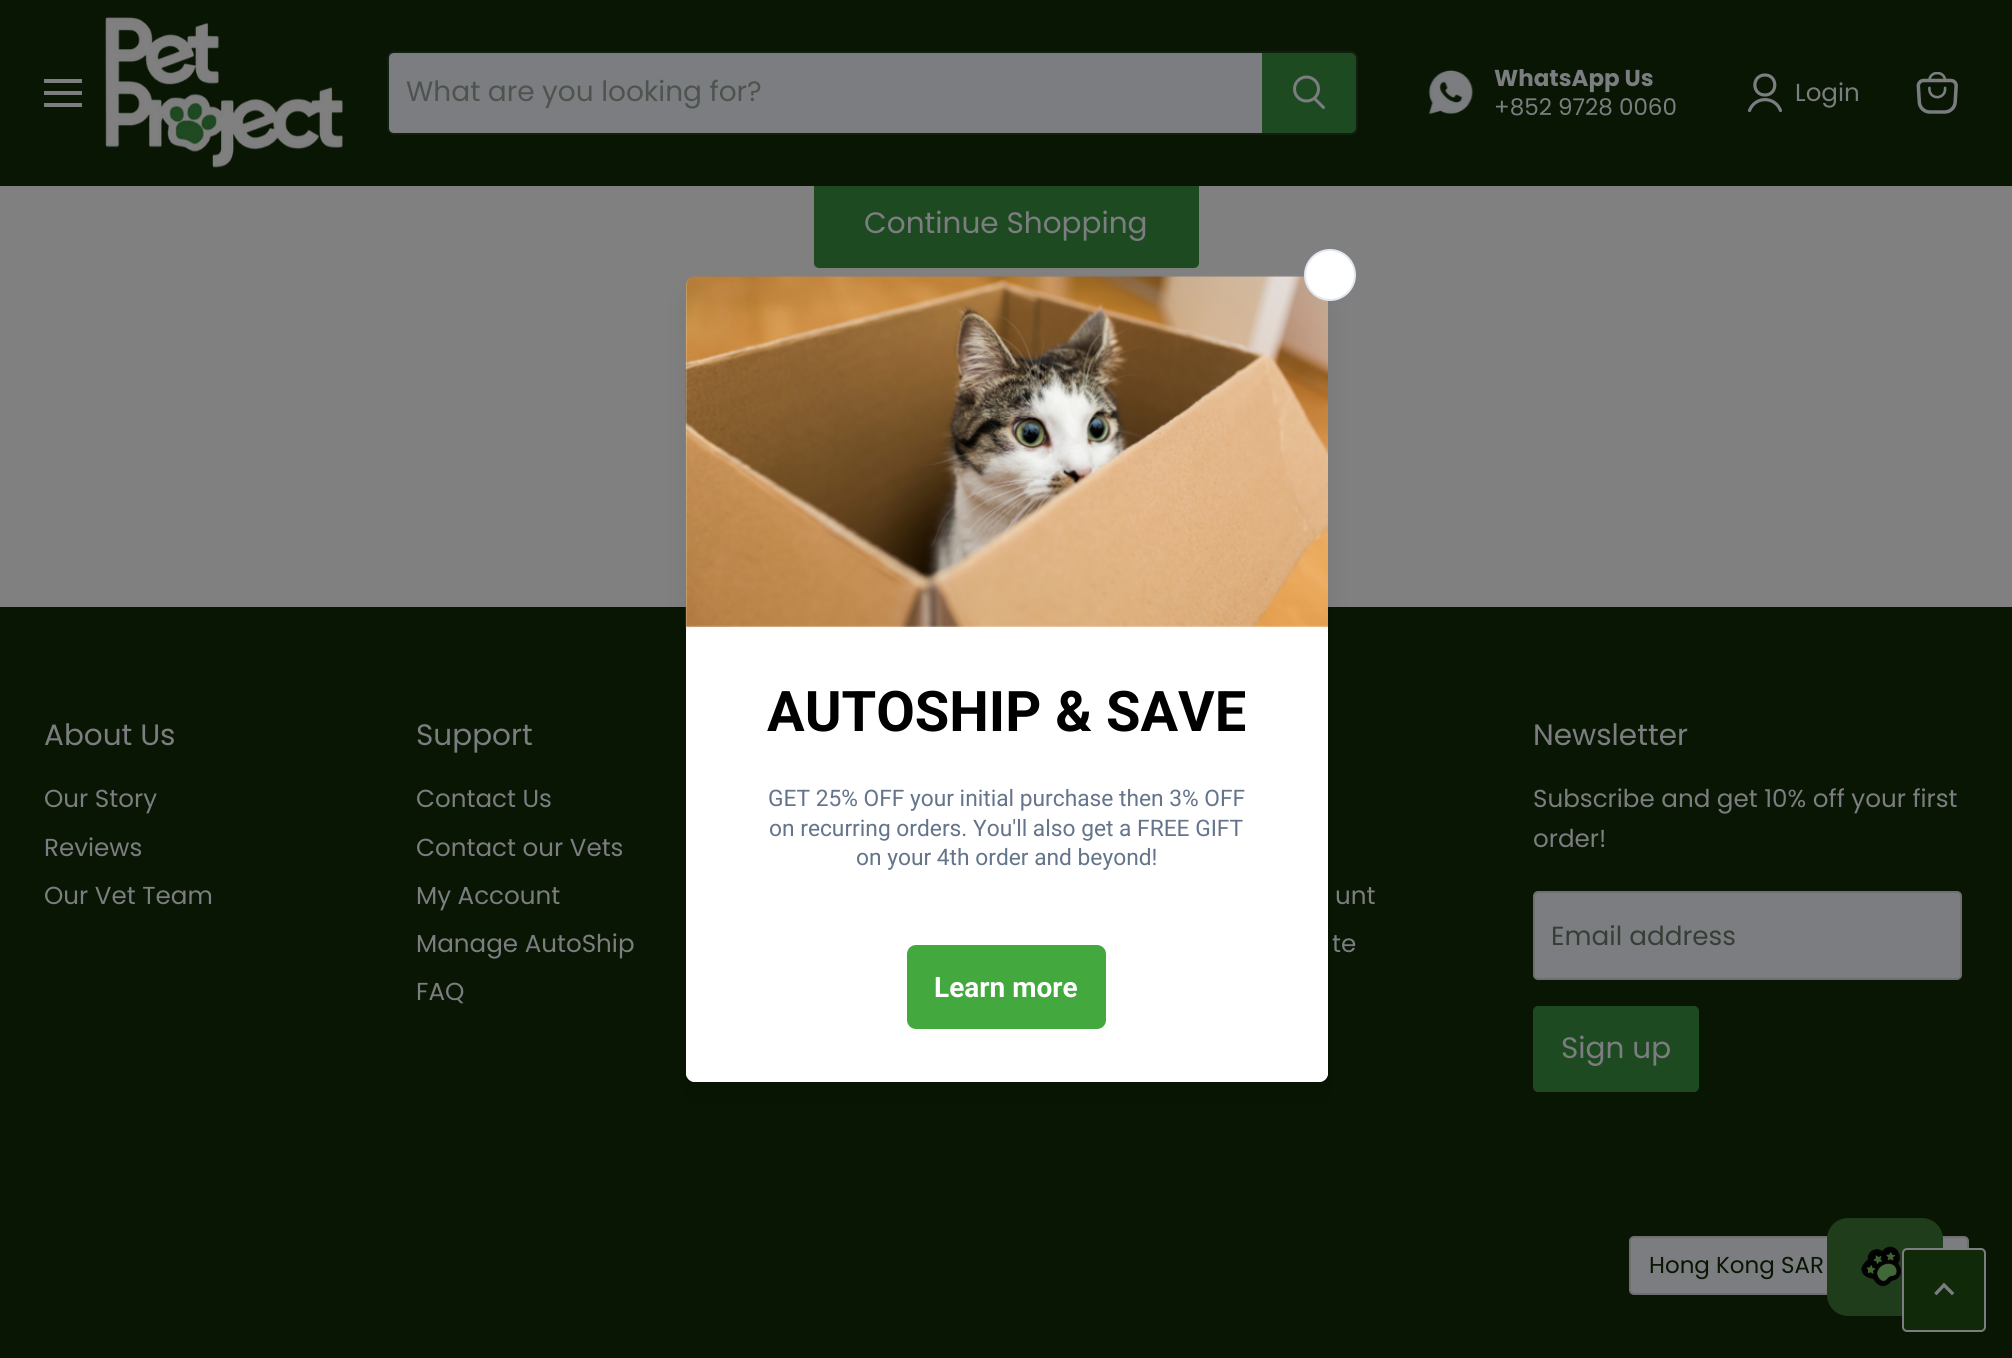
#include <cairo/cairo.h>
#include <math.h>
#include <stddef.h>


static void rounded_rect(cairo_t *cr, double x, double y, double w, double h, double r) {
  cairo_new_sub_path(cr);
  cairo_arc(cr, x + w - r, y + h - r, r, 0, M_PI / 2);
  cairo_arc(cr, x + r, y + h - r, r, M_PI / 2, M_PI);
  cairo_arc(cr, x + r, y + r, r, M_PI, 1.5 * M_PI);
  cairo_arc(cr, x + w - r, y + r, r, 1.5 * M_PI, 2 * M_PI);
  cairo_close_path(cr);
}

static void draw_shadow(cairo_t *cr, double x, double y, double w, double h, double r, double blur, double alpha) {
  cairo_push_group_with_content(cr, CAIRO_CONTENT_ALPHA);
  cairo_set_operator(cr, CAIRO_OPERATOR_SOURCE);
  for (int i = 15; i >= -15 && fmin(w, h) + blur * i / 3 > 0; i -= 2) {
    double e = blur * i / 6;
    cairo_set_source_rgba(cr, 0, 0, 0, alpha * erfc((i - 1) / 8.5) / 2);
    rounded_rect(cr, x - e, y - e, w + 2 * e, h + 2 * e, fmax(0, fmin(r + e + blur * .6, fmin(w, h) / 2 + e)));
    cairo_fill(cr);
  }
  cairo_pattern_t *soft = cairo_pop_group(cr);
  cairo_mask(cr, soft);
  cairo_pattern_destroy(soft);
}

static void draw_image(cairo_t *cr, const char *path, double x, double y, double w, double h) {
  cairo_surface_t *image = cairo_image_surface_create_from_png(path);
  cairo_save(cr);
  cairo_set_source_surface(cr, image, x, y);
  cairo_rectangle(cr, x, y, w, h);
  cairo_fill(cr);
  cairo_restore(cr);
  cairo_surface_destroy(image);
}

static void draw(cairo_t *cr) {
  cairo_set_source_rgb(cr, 128 / 255.0, 128 / 255.0, 128 / 255.0);
  cairo_paint(cr);
  cairo_set_source_rgb(cr, 30 / 255.0, 74 / 255.0, 33 / 255.0);
  rounded_rect(cr, 815, 181, 383, 86, 4);
  cairo_fill_preserve(cr);
  cairo_stroke(cr);
  cairo_set_source_rgb(cr, 8 / 255.0, 22 / 255.0, 3 / 255.0);
  cairo_rectangle(cr, 0, 0, 2012, 186);
  cairo_fill(cr);
  cairo_set_source_rgb(cr, 123 / 255.0, 125 / 255.0, 128 / 255.0);
  cairo_rectangle(cr, 44, 79, 38, 4);
  cairo_fill(cr);
  cairo_rectangle(cr, 44, 91, 38, 4);
  cairo_fill(cr);
  cairo_rectangle(cr, 44, 103, 38, 4);
  cairo_fill(cr);
  draw_image(cr, "images/1.png", 105, 17, 240, 151);
  rounded_rect(cr, 388, 52, 969, 82, 6);
  cairo_set_source_rgba(cr, 64 / 255.0, 64 / 255.0, 64 / 255.0, 0.2);
  cairo_stroke(cr);
  cairo_set_source_rgb(cr, 123 / 255.0, 125 / 255.0, 128 / 255.0);
  cairo_new_path(cr);
  cairo_move_to(cr, 394, 53);
  cairo_line_to(cr, 1262, 53);
  cairo_line_to(cr, 1262, 133);
  cairo_line_to(cr, 394, 133);
  cairo_curve_to(cr, 391, 133, 389, 131, 389, 128);
  cairo_line_to(cr, 389, 58);
  cairo_curve_to(cr, 389, 55, 391, 53, 394, 53);
  cairo_close_path(cr);
  cairo_fill(cr);
  cairo_set_source_rgb(cr, 30 / 255.0, 74 / 255.0, 33 / 255.0);
  cairo_new_path(cr);
  cairo_move_to(cr, 1263, 54);
  cairo_line_to(cr, 1351, 54);
  cairo_curve_to(cr, 1353, 54, 1355, 56, 1355, 58);
  cairo_line_to(cr, 1355, 128);
  cairo_curve_to(cr, 1355, 130, 1353, 132, 1351, 132);
  cairo_line_to(cr, 1263, 132);
  cairo_close_path(cr);
  cairo_fill_preserve(cr);
  cairo_stroke(cr);
  cairo_new_path(cr);
  cairo_move_to(cr, 1323.5, 107.5);
  cairo_line_to(cr, 1315, 99);
  cairo_set_source_rgb(cr, 123 / 255.0, 125 / 255.0, 128 / 255.0);
  cairo_set_line_width(cr, 3);
  cairo_set_line_cap(cr, CAIRO_LINE_CAP_ROUND);
  cairo_stroke(cr);
  cairo_arc(cr, 1306.5, 89, 12, 0, 2 * M_PI);
  cairo_set_line_cap(cr, CAIRO_LINE_CAP_BUTT);
  cairo_stroke(cr);
  draw_image(cr, "images/2.png", 1428, 70, 46, 45);
  cairo_new_path(cr);
  cairo_move_to(cr, 1765, 95);
  cairo_curve_to(cr, 1778, 95, 1778, 75, 1765, 75);
  cairo_curve_to(cr, 1751.5, 75, 1751.5, 95, 1765, 95);
  cairo_close_path(cr);
  cairo_move_to(cr, 1780.5, 110.5);
  cairo_curve_to(cr, 1775, 96, 1755, 96, 1749.5, 110.5);
  cairo_set_line_width(cr, 3.2);
  cairo_set_line_cap(cr, CAIRO_LINE_CAP_ROUND);
  cairo_set_line_join(cr, CAIRO_LINE_JOIN_ROUND);
  cairo_stroke(cr);
  draw_image(cr, "images/3.png", 1916, 72, 42, 42);
  cairo_set_source_rgb(cr, 8 / 255.0, 22 / 255.0, 3 / 255.0);
  cairo_rectangle(cr, 0, 607, 2012, 751);
  cairo_fill(cr);
  cairo_set_source_rgb(cr, 0, 0, 0);
  draw_shadow(cr, 691, 299, 632, 795, 4, 13, 0.1);
  cairo_set_source_rgb(cr, 1, 1, 1);
  rounded_rect(cr, 686, 277, 642, 805, 9);
  cairo_fill(cr);
  draw_image(cr, "images/4.png", 685, 275, 643, 352);
  cairo_arc(cr, 1330, 275, 25, 0, 2 * M_PI);
  cairo_fill_preserve(cr);
  cairo_set_source_rgb(cr, 226 / 255.0, 232 / 255.0, 240 / 255.0);
  cairo_set_line_width(cr, 2);
  cairo_set_line_cap(cr, CAIRO_LINE_CAP_BUTT);
  cairo_set_line_join(cr, CAIRO_LINE_JOIN_MITER);
  cairo_stroke(cr);
  cairo_save(cr);
  cairo_rectangle(cr, 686, 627, 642, 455);
  cairo_clip(cr);
  cairo_set_source_rgb(cr, 0, 0, 0);
  draw_shadow(cr, 690, 637, 635, 448, 5, 5, 0.05);
  draw_shadow(cr, 691, 632, 632, 444, 4, 17.5, 0.12);
  cairo_restore(cr);
  cairo_set_source_rgb(cr, 1, 1, 1);
  rounded_rect(cr, 686, 627, 642, 455, 9);
  cairo_fill(cr);
  cairo_set_source_rgb(cr, 67 / 255.0, 169 / 255.0, 63 / 255.0);
  rounded_rect(cr, 907, 945, 199, 84, 9);
  cairo_fill(cr);
  cairo_set_source_rgb(cr, 123 / 255.0, 125 / 255.0, 128 / 255.0);
  rounded_rect(cr, 1534, 892, 427, 87, 4);
  cairo_fill_preserve(cr);
  cairo_set_source_rgb(cr, 111 / 255.0, 111 / 255.0, 111 / 255.0);
  cairo_stroke(cr);
  cairo_set_source_rgb(cr, 30 / 255.0, 74 / 255.0, 33 / 255.0);
  rounded_rect(cr, 1534, 1007, 164, 84, 4);
  cairo_fill_preserve(cr);
  cairo_stroke(cr);
  cairo_set_source_rgb(cr, 123 / 255.0, 125 / 255.0, 128 / 255.0);
  rounded_rect(cr, 1630, 1237, 338, 57, 4);
  cairo_fill_preserve(cr);
  cairo_set_source_rgb(cr, 111 / 255.0, 111 / 255.0, 111 / 255.0);
  cairo_stroke(cr);
  cairo_set_source_rgb(cr, 31 / 255.0, 60 / 255.0, 27 / 255.0);
  rounded_rect(cr, 1827, 1218, 116, 98, 21);
  cairo_fill(cr);
  draw_image(cr, "images/5.png", 1861, 1246, 41, 41);
  cairo_set_source_rgb(cr, 16 / 255.0, 41 / 255.0, 8 / 255.0);
  rounded_rect(cr, 1903, 1249, 82, 82, 4);
  cairo_fill_preserve(cr);
  cairo_set_source_rgb(cr, 123 / 255.0, 125 / 255.0, 128 / 255.0);
  cairo_stroke(cr);
  cairo_new_path(cr);
  cairo_move_to(cr, 1944, 1285);
  cairo_line_to(cr, 1936.5, 1293);
  cairo_move_to(cr, 1944, 1285);
  cairo_line_to(cr, 1952, 1293);
  cairo_set_line_width(cr, 3.3);
  cairo_set_line_cap(cr, CAIRO_LINE_CAP_SQUARE);
  cairo_stroke(cr);
  cairo_select_font_face(cr, "Poppins", CAIRO_FONT_SLANT_NORMAL, CAIRO_FONT_WEIGHT_NORMAL);
  cairo_set_font_size(cr, 28);
  cairo_set_source_rgb(cr, 77 / 255.0, 84 / 255.0, 78 / 255.0);
  cairo_move_to(cr, 406, 101);
  cairo_show_text(cr, "What are you looking for?");
  cairo_select_font_face(cr, "Poppins", CAIRO_FONT_SLANT_NORMAL, CAIRO_FONT_WEIGHT_BOLD);
  cairo_set_font_size(cr, 23);
  cairo_set_source_rgb(cr, 123 / 255.0, 125 / 255.0, 128 / 255.0);
  cairo_move_to(cr, 1494, 86);
  cairo_show_text(cr, "WhatsApp Us");
  cairo_select_font_face(cr, "Poppins", CAIRO_FONT_SLANT_NORMAL, CAIRO_FONT_WEIGHT_NORMAL);
  cairo_move_to(cr, 1494, 115);
  cairo_show_text(cr, "+852 9728 0060");
  cairo_set_font_size(cr, 24.6);
  cairo_move_to(cr, 1795, 101);
  cairo_show_text(cr, "Login");
  cairo_set_font_size(cr, 29.5);
  cairo_move_to(cr, 864, 233);
  cairo_show_text(cr, "Continue Shopping");
  cairo_select_font_face(cr, "Roboto", CAIRO_FONT_SLANT_NORMAL, CAIRO_FONT_WEIGHT_BOLD);
  cairo_set_font_size(cr, 56);
  cairo_set_source_rgb(cr, 0, 0, 0);
  cairo_move_to(cr, 767, 731);
  cairo_show_text(cr, "AUTOSHIP & SAVE");
  cairo_select_font_face(cr, "Roboto", CAIRO_FONT_SLANT_NORMAL, CAIRO_FONT_WEIGHT_NORMAL);
  cairo_set_font_size(cr, 22.75);
  cairo_set_source_rgb(cr, 100 / 255.0, 116 / 255.0, 139 / 255.0);
  cairo_move_to(cr, 768, 806);
  cairo_show_text(cr, "GET 25% OFF your initial purchase then 3% OFF");
  cairo_move_to(cr, 769, 836);
  cairo_show_text(cr, "on recurring orders. You'll also get a FREE GIFT");
  cairo_move_to(cr, 856, 865);
  cairo_show_text(cr, "on your 4th order and beyond!");
  cairo_select_font_face(cr, "Roboto", CAIRO_FONT_SLANT_NORMAL, CAIRO_FONT_WEIGHT_BOLD);
  cairo_set_font_size(cr, 28);
  cairo_set_source_rgb(cr, 1, 1, 1);
  cairo_move_to(cr, 934, 997);
  cairo_show_text(cr, "Learn more");
  cairo_select_font_face(cr, "Poppins", CAIRO_FONT_SLANT_NORMAL, CAIRO_FONT_WEIGHT_NORMAL);
  cairo_set_font_size(cr, 29.5);
  cairo_set_source_rgb(cr, 123 / 255.0, 125 / 255.0, 128 / 255.0);
  cairo_move_to(cr, 44, 745);
  cairo_show_text(cr, "About Us");
  cairo_set_font_size(cr, 24.6);
  cairo_move_to(cr, 44, 807);
  cairo_show_text(cr, "Our Story");
  cairo_move_to(cr, 44, 856);
  cairo_show_text(cr, "Reviews");
  cairo_move_to(cr, 44, 904);
  cairo_show_text(cr, "Our Vet Team");
  cairo_set_font_size(cr, 29.5);
  cairo_move_to(cr, 416, 745);
  cairo_show_text(cr, "Support");
  cairo_set_font_size(cr, 24.6);
  cairo_move_to(cr, 416, 807);
  cairo_show_text(cr, "Contact Us");
  cairo_move_to(cr, 416, 856);
  cairo_show_text(cr, "Contact our Vets");
  cairo_move_to(cr, 416, 904);
  cairo_show_text(cr, "My Account");
  cairo_move_to(cr, 416, 952);
  cairo_show_text(cr, "Manage AutoShip");
  cairo_move_to(cr, 416, 1000);
  cairo_show_text(cr, "FAQ");
  cairo_move_to(cr, 1335, 904);
  cairo_show_text(cr, "unt");
  cairo_move_to(cr, 1332, 952);
  cairo_show_text(cr, "te");
  cairo_set_font_size(cr, 29.5);
  cairo_move_to(cr, 1533, 745);
  cairo_show_text(cr, "Newsletter");
  cairo_set_font_size(cr, 24.6);
  cairo_move_to(cr, 1533, 807);
  cairo_show_text(cr, "Subscribe and get 10% off your first");
  cairo_move_to(cr, 1533, 847);
  cairo_show_text(cr, "order!");
  cairo_set_font_size(cr, 26.25);
  cairo_set_source_rgb(cr, 54 / 255.0, 63 / 255.0, 53 / 255.0);
  cairo_move_to(cr, 1551, 945);
  cairo_show_text(cr, "Email address");
  cairo_set_font_size(cr, 29.5);
  cairo_set_source_rgb(cr, 123 / 255.0, 125 / 255.0, 128 / 255.0);
  cairo_move_to(cr, 1561, 1058);
  cairo_show_text(cr, "Sign up");
  cairo_set_font_size(cr, 23);
  cairo_set_source_rgb(cr, 8 / 255.0, 22 / 255.0, 3 / 255.0);
  cairo_move_to(cr, 1649, 1273);
  cairo_show_text(cr, "Hong Kong SAR");
}

int main(void) {
  cairo_surface_t *surface = cairo_image_surface_create(CAIRO_FORMAT_RGB24, 2012, 1358);
  cairo_t *cr = cairo_create(surface);
  cairo_font_options_t *options = cairo_font_options_create();
  cairo_font_options_set_hint_metrics(options, CAIRO_HINT_METRICS_OFF);
  cairo_font_options_set_hint_style(options, CAIRO_HINT_STYLE_NONE);
  cairo_set_font_options(cr, options);
  cairo_set_miter_limit(cr, 4);
  draw(cr);
  cairo_surface_write_to_png(surface, "out.png");
  cairo_font_options_destroy(options);
  cairo_destroy(cr);
  cairo_surface_destroy(surface);
  return 0;
}
